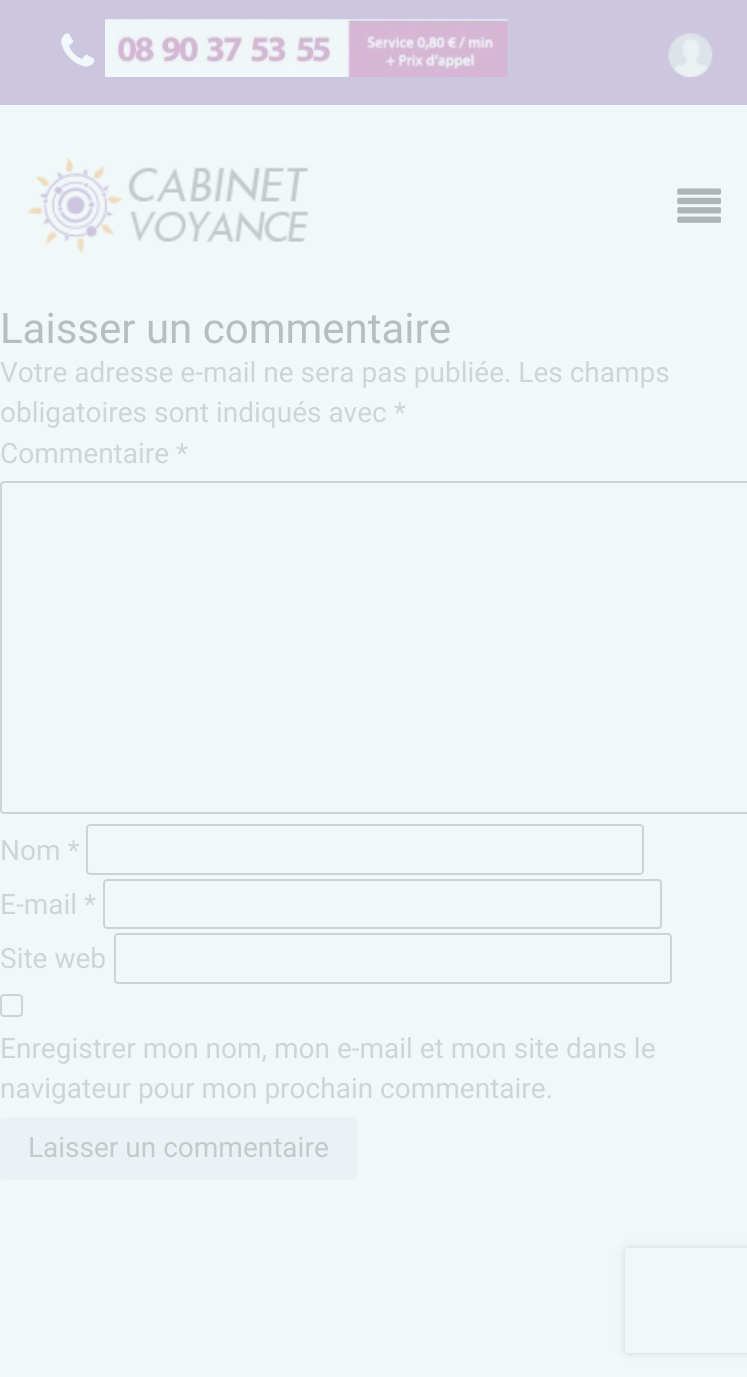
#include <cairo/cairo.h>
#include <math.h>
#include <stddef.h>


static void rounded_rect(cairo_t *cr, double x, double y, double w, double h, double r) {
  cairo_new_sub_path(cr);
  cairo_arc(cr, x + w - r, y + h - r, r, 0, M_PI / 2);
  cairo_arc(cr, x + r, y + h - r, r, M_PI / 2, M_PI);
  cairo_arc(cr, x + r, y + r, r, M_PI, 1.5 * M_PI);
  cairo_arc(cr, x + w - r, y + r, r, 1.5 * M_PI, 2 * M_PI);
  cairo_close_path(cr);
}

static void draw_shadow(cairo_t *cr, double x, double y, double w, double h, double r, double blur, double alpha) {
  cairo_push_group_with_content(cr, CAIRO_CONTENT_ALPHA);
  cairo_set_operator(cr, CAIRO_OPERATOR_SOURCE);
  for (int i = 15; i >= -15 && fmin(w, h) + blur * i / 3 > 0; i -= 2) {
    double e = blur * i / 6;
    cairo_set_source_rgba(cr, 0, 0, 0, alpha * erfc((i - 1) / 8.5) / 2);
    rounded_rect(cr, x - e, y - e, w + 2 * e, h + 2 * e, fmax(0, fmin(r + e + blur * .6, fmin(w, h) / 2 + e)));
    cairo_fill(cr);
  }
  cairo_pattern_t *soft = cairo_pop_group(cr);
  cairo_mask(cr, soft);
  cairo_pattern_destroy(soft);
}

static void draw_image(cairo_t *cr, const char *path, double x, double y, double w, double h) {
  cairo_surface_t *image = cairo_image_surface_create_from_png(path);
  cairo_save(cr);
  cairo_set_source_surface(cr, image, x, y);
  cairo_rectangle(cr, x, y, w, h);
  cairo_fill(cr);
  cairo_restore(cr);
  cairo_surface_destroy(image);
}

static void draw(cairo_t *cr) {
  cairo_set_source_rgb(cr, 241 / 255.0, 248 / 255.0, 249 / 255.0);
  cairo_paint(cr);
  cairo_set_source_rgb(cr, 205 / 255.0, 198 / 255.0, 223 / 255.0);
  cairo_rectangle(cr, 0, 0, 747, 105);
  cairo_fill(cr);
  draw_image(cr, "images/1.png", 61, 33, 34, 34);
  draw_image(cr, "images/2.png", 105, 19, 403, 58);
  draw_image(cr, "images/3.png", 668, 33, 45, 44);
  draw_image(cr, "images/4.png", 26, 157, 282, 97);
  draw_image(cr, "images/5.png", 677, 188, 44, 35);
  rounded_rect(cr, 1, 482, 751, 331, 3);
  cairo_set_source_rgb(cr, 205 / 255.0, 212 / 255.0, 213 / 255.0);
  cairo_stroke(cr);
  rounded_rect(cr, 87, 825, 556, 49, 3);
  cairo_stroke(cr);
  rounded_rect(cr, 104, 880, 557, 48, 3);
  cairo_stroke(cr);
  rounded_rect(cr, 115, 934, 556, 49, 3);
  cairo_stroke(cr);
  rounded_rect(cr, 1, 995, 21, 21, 3);
  cairo_stroke(cr);
  cairo_set_source_rgb(cr, 235 / 255.0, 241 / 255.0, 244 / 255.0);
  rounded_rect(cr, 0, 1117, 357, 63, 5);
  cairo_fill(cr);
  cairo_save(cr);
  cairo_set_fill_rule(cr, CAIRO_FILL_RULE_EVEN_ODD);
  cairo_new_path(cr);
  cairo_move_to(cr, 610, 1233);
  cairo_line_to(cr, 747, 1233);
  cairo_line_to(cr, 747, 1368);
  cairo_line_to(cr, 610, 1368);
  cairo_close_path(cr);
  cairo_move_to(cr, 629, 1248);
  cairo_line_to(cr, 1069, 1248);
  cairo_curve_to(cr, 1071, 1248, 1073, 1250, 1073, 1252);
  cairo_line_to(cr, 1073, 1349);
  cairo_curve_to(cr, 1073, 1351, 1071, 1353, 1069, 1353);
  cairo_line_to(cr, 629, 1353);
  cairo_curve_to(cr, 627, 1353, 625, 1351, 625, 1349);
  cairo_line_to(cr, 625, 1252);
  cairo_curve_to(cr, 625, 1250, 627, 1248, 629, 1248);
  cairo_close_path(cr);
  cairo_clip(cr);
  cairo_set_source_rgb(cr, 208 / 255.0, 215 / 255.0, 216 / 255.0);
  draw_shadow(cr, 625, 1248, 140, 105, 4, 4.5, 1);
  cairo_restore(cr);
  cairo_select_font_face(cr, "Roboto", CAIRO_FONT_SLANT_NORMAL, CAIRO_FONT_WEIGHT_NORMAL);
  cairo_set_font_size(cr, 42);
  cairo_set_source_rgb(cr, 183 / 255.0, 190 / 255.0, 192 / 255.0);
  cairo_move_to(cr, 0, 343);
  cairo_show_text(cr, "Laisser un commentaire");
  cairo_set_font_size(cr, 28);
  cairo_set_source_rgb(cr, 206 / 255.0, 213 / 255.0, 214 / 255.0);
  cairo_move_to(cr, 0, 382);
  cairo_show_text(cr, "Votre adresse e-mail ne sera pas publiée. Les champs");
  cairo_move_to(cr, 0, 422);
  cairo_show_text(cr, "obligatoires sont indiqués avec *");
  cairo_move_to(cr, 0, 463);
  cairo_show_text(cr, "Commentaire *");
  cairo_move_to(cr, 0, 860);
  cairo_show_text(cr, "Nom *");
  cairo_move_to(cr, 0, 914);
  cairo_show_text(cr, "E-mail *");
  cairo_move_to(cr, 0, 968);
  cairo_show_text(cr, "Site web");
  cairo_move_to(cr, 0, 1058);
  cairo_show_text(cr, "Enregistrer mon nom, mon e-mail et mon site dans le");
  cairo_move_to(cr, 0, 1098);
  cairo_show_text(cr, "navigateur pour mon prochain commentaire.");
  cairo_set_source_rgb(cr, 196 / 255.0, 202 / 255.0, 204 / 255.0);
  cairo_move_to(cr, 28, 1157);
  cairo_show_text(cr, "Laisser un commentaire");
}

int main(void) {
  cairo_surface_t *surface = cairo_image_surface_create(CAIRO_FORMAT_RGB24, 747, 1377);
  cairo_t *cr = cairo_create(surface);
  cairo_font_options_t *options = cairo_font_options_create();
  cairo_font_options_set_hint_metrics(options, CAIRO_HINT_METRICS_OFF);
  cairo_font_options_set_hint_style(options, CAIRO_HINT_STYLE_NONE);
  cairo_set_font_options(cr, options);
  cairo_set_miter_limit(cr, 4);
  draw(cr);
  cairo_surface_write_to_png(surface, "out.png");
  cairo_font_options_destroy(options);
  cairo_destroy(cr);
  cairo_surface_destroy(surface);
  return 0;
}
